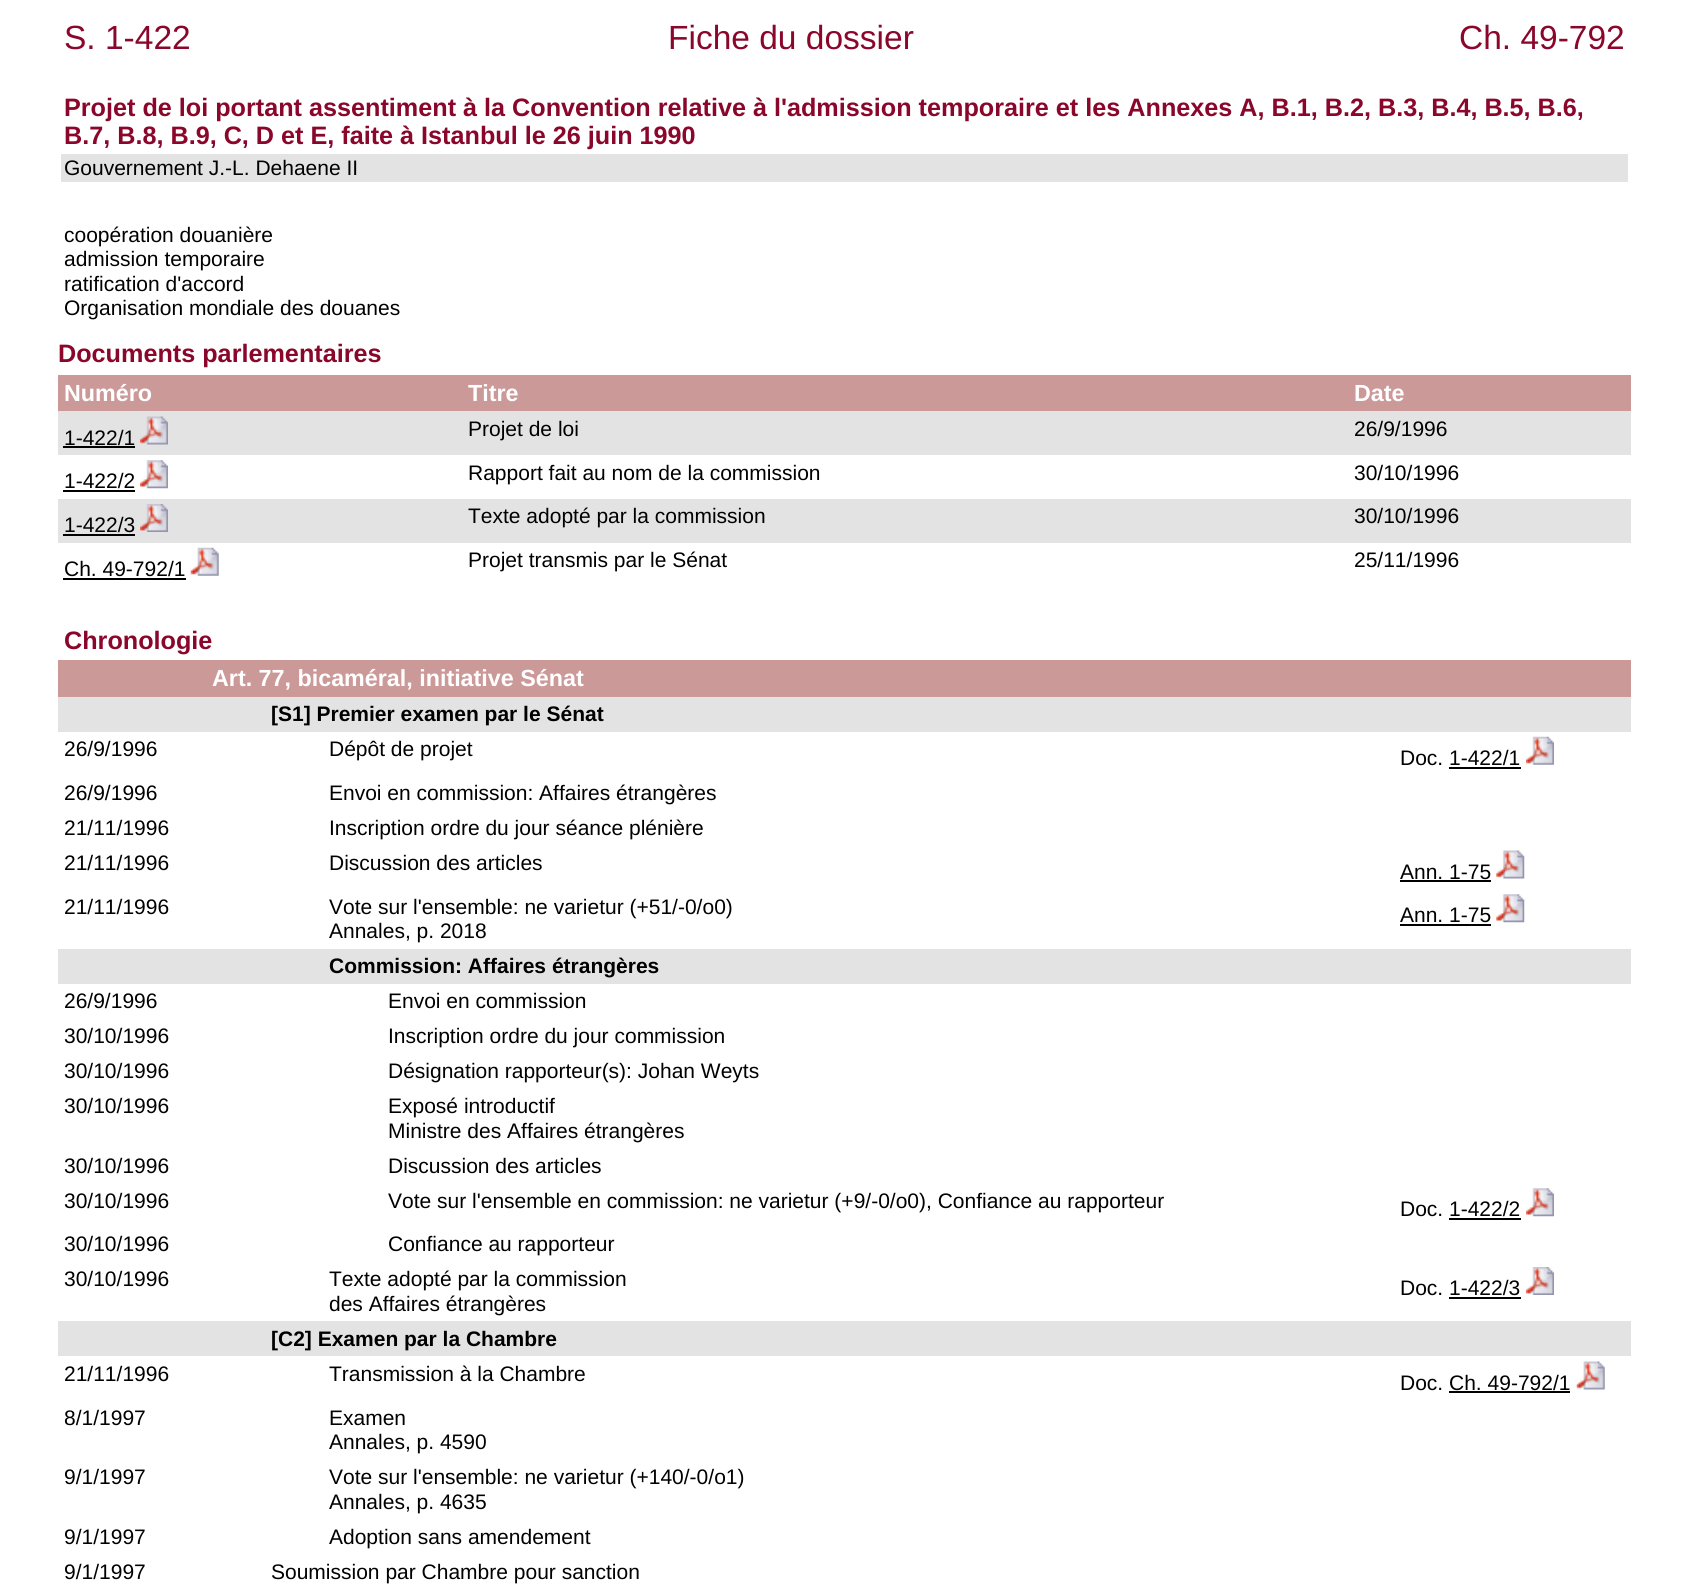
#include <cairo/cairo.h>
#include <math.h>
#include <stddef.h>


static void draw_image(cairo_t *cr, const char *path, double x, double y, double w, double h) {
  cairo_surface_t *image = cairo_image_surface_create_from_png(path);
  cairo_save(cr);
  cairo_set_source_surface(cr, image, x, y);
  cairo_rectangle(cr, x, y, w, h);
  cairo_fill(cr);
  cairo_restore(cr);
  cairo_surface_destroy(image);
}

static void draw(cairo_t *cr) {
  cairo_set_source_rgb(cr, 1, 1, 1);
  cairo_paint(cr);
  cairo_set_source_rgb(cr, 227 / 255.0, 227 / 255.0, 227 / 255.0);
  cairo_rectangle(cr, 61, 154, 1567, 28);
  cairo_fill(cr);
  cairo_set_source_rgb(cr, 204 / 255.0, 153 / 255.0, 153 / 255.0);
  cairo_rectangle(cr, 58, 375, 1573, 36);
  cairo_fill(cr);
  cairo_set_source_rgb(cr, 227 / 255.0, 227 / 255.0, 227 / 255.0);
  cairo_rectangle(cr, 58, 411, 1573, 44);
  cairo_fill(cr);
  cairo_set_source_rgb(cr, 0, 0, 0);
  cairo_rectangle(cr, 63, 446, 72, 2);
  cairo_fill(cr);
  draw_image(cr, "images/1.png", 140, 416, 28, 29);
  cairo_rectangle(cr, 63, 490, 72, 2);
  cairo_fill(cr);
  draw_image(cr, "images/2.png", 140, 460, 28, 29);
  cairo_set_source_rgb(cr, 227 / 255.0, 227 / 255.0, 227 / 255.0);
  cairo_rectangle(cr, 58, 499, 1573, 44);
  cairo_fill(cr);
  cairo_set_source_rgb(cr, 0, 0, 0);
  cairo_rectangle(cr, 63, 534, 72, 2);
  cairo_fill(cr);
  draw_image(cr, "images/3.png", 140, 504, 28, 28);
  cairo_rectangle(cr, 63, 578, 123, 2);
  cairo_fill(cr);
  draw_image(cr, "images/4.png", 190, 547, 29, 29);
  cairo_set_source_rgb(cr, 204 / 255.0, 153 / 255.0, 153 / 255.0);
  cairo_rectangle(cr, 58, 660, 1573, 37);
  cairo_fill(cr);
  cairo_set_source_rgb(cr, 227 / 255.0, 227 / 255.0, 227 / 255.0);
  cairo_rectangle(cr, 58, 697, 1573, 35);
  cairo_fill(cr);
  draw_image(cr, "images/5.png", 1526, 736, 28, 29);
  cairo_set_source_rgb(cr, 0, 0, 0);
  cairo_rectangle(cr, 1449, 767, 72, 2);
  cairo_fill(cr);
  cairo_rectangle(cr, 1400, 880, 91, 2);
  cairo_fill(cr);
  draw_image(cr, "images/6.png", 1496, 850, 29, 29);
  cairo_rectangle(cr, 1400, 924, 91, 2);
  cairo_fill(cr);
  draw_image(cr, "images/7.png", 1496, 894, 29, 29);
  cairo_set_source_rgb(cr, 227 / 255.0, 227 / 255.0, 227 / 255.0);
  cairo_rectangle(cr, 58, 949, 1573, 35);
  cairo_fill(cr);
  draw_image(cr, "images/2.png", 1526, 1188, 28, 29);
  cairo_set_source_rgb(cr, 0, 0, 0);
  cairo_rectangle(cr, 1449, 1218, 72, 2);
  cairo_fill(cr);
  draw_image(cr, "images/8.png", 1526, 1267, 28, 28);
  cairo_rectangle(cr, 1449, 1297, 72, 2);
  cairo_fill(cr);
  cairo_set_source_rgb(cr, 227 / 255.0, 227 / 255.0, 227 / 255.0);
  cairo_rectangle(cr, 58, 1321, 1573, 35);
  cairo_fill(cr);
  draw_image(cr, "images/9.png", 1576, 1361, 29, 29);
  cairo_set_source_rgb(cr, 0, 0, 0);
  cairo_rectangle(cr, 1449, 1391, 121, 2);
  cairo_fill(cr);
  cairo_select_font_face(cr, "Liberation Sans", CAIRO_FONT_SLANT_NORMAL, CAIRO_FONT_WEIGHT_NORMAL);
  cairo_set_font_size(cr, 33.5);
  cairo_set_source_rgb(cr, 138 / 255.0, 6 / 255.0, 43 / 255.0);
  cairo_move_to(cr, 64, 49);
  cairo_show_text(cr, "S. 1-422");
  cairo_move_to(cr, 668, 49);
  cairo_show_text(cr, "Fiche du dossier");
  cairo_move_to(cr, 1459, 49);
  cairo_show_text(cr, "Ch. 49-792");
  cairo_select_font_face(cr, "Liberation Sans", CAIRO_FONT_SLANT_NORMAL, CAIRO_FONT_WEIGHT_BOLD);
  cairo_set_font_size(cr, 25.2);
  cairo_move_to(cr, 64, 116);
  cairo_show_text(cr, "Projet de loi portant assentiment à la Convention relative à l'admission temporaire et les Annexes A, B.1, B.2, B.3, B.4, B.5, B.6,");
  cairo_move_to(cr, 64, 144);
  cairo_show_text(cr, "B.7, B.8, B.9, C, D et E, faite à Istanbul le 26 juin 1990");
  cairo_select_font_face(cr, "Liberation Sans", CAIRO_FONT_SLANT_NORMAL, CAIRO_FONT_WEIGHT_NORMAL);
  cairo_set_font_size(cr, 21);
  cairo_set_source_rgb(cr, 0, 0, 0);
  cairo_move_to(cr, 64, 175);
  cairo_show_text(cr, "Gouvernement J.-L. Dehaene II");
  cairo_move_to(cr, 64, 242);
  cairo_show_text(cr, "coopération douanière");
  cairo_move_to(cr, 64, 266);
  cairo_show_text(cr, "admission temporaire");
  cairo_move_to(cr, 64, 291);
  cairo_show_text(cr, "ratification d'accord");
  cairo_move_to(cr, 64, 315);
  cairo_show_text(cr, "Organisation mondiale des douanes");
  cairo_select_font_face(cr, "Liberation Sans", CAIRO_FONT_SLANT_NORMAL, CAIRO_FONT_WEIGHT_BOLD);
  cairo_set_font_size(cr, 25.2);
  cairo_set_source_rgb(cr, 138 / 255.0, 6 / 255.0, 43 / 255.0);
  cairo_move_to(cr, 58, 362);
  cairo_show_text(cr, "Documents parlementaires");
  cairo_set_font_size(cr, 23.3);
  cairo_set_source_rgb(cr, 1, 1, 1);
  cairo_move_to(cr, 64, 401);
  cairo_show_text(cr, "Numéro");
  cairo_move_to(cr, 468, 401);
  cairo_show_text(cr, "Titre");
  cairo_move_to(cr, 1354, 401);
  cairo_show_text(cr, "Date");
  cairo_select_font_face(cr, "Liberation Sans", CAIRO_FONT_SLANT_NORMAL, CAIRO_FONT_WEIGHT_NORMAL);
  cairo_set_font_size(cr, 21);
  cairo_set_source_rgb(cr, 0, 0, 0);
  cairo_move_to(cr, 64, 445);
  cairo_show_text(cr, "1-422/1");
  cairo_move_to(cr, 468, 436);
  cairo_show_text(cr, "Projet de loi");
  cairo_move_to(cr, 1354, 436);
  cairo_show_text(cr, "26/9/1996");
  cairo_move_to(cr, 64, 488);
  cairo_show_text(cr, "1-422/2");
  cairo_move_to(cr, 468, 480);
  cairo_show_text(cr, "Rapport fait au nom de la commission");
  cairo_move_to(cr, 1354, 480);
  cairo_show_text(cr, "30/10/1996");
  cairo_move_to(cr, 64, 532);
  cairo_show_text(cr, "1-422/3");
  cairo_move_to(cr, 468, 523);
  cairo_show_text(cr, "Texte adopté par la commission");
  cairo_move_to(cr, 1354, 523);
  cairo_show_text(cr, "30/10/1996");
  cairo_move_to(cr, 64, 576);
  cairo_show_text(cr, "Ch. 49-792/1");
  cairo_move_to(cr, 468, 567);
  cairo_show_text(cr, "Projet transmis par le Sénat");
  cairo_move_to(cr, 1354, 567);
  cairo_show_text(cr, "25/11/1996");
  cairo_select_font_face(cr, "Liberation Sans", CAIRO_FONT_SLANT_NORMAL, CAIRO_FONT_WEIGHT_BOLD);
  cairo_set_font_size(cr, 25.2);
  cairo_set_source_rgb(cr, 138 / 255.0, 6 / 255.0, 43 / 255.0);
  cairo_move_to(cr, 64, 649);
  cairo_show_text(cr, "Chronologie");
  cairo_set_font_size(cr, 23.3);
  cairo_set_source_rgb(cr, 1, 1, 1);
  cairo_move_to(cr, 212, 686);
  cairo_show_text(cr, "Art. 77, bicaméral, initiative Sénat");
  cairo_set_font_size(cr, 21);
  cairo_set_source_rgb(cr, 0, 0, 0);
  cairo_move_to(cr, 271, 721);
  cairo_show_text(cr, "[S1] Premier examen par le Sénat");
  cairo_select_font_face(cr, "Liberation Sans", CAIRO_FONT_SLANT_NORMAL, CAIRO_FONT_WEIGHT_NORMAL);
  cairo_move_to(cr, 64, 756);
  cairo_show_text(cr, "26/9/1996");
  cairo_move_to(cr, 329, 756);
  cairo_show_text(cr, "Dépôt de projet");
  cairo_move_to(cr, 1400, 765);
  cairo_show_text(cr, "Doc. 1-422/1");
  cairo_move_to(cr, 64, 800);
  cairo_show_text(cr, "26/9/1996");
  cairo_move_to(cr, 329, 800);
  cairo_show_text(cr, "Envoi en commission: Affaires étrangères");
  cairo_move_to(cr, 64, 835);
  cairo_show_text(cr, "21/11/1996");
  cairo_move_to(cr, 329, 835);
  cairo_show_text(cr, "Inscription ordre du jour séance plénière");
  cairo_move_to(cr, 64, 870);
  cairo_show_text(cr, "21/11/1996");
  cairo_move_to(cr, 329, 870);
  cairo_show_text(cr, "Discussion des articles");
  cairo_move_to(cr, 1400, 879);
  cairo_show_text(cr, "Ann. 1-75");
  cairo_move_to(cr, 64, 914);
  cairo_show_text(cr, "21/11/1996");
  cairo_move_to(cr, 329, 914);
  cairo_show_text(cr, "Vote sur l'ensemble: ne varietur (+51/-0/o0)");
  cairo_move_to(cr, 329, 938);
  cairo_show_text(cr, "Annales, p. 2018");
  cairo_move_to(cr, 1400, 922);
  cairo_show_text(cr, "Ann. 1-75");
  cairo_select_font_face(cr, "Liberation Sans", CAIRO_FONT_SLANT_NORMAL, CAIRO_FONT_WEIGHT_BOLD);
  cairo_move_to(cr, 329, 973);
  cairo_show_text(cr, "Commission: Affaires étrangères");
  cairo_select_font_face(cr, "Liberation Sans", CAIRO_FONT_SLANT_NORMAL, CAIRO_FONT_WEIGHT_NORMAL);
  cairo_move_to(cr, 64, 1008);
  cairo_show_text(cr, "26/9/1996");
  cairo_move_to(cr, 388, 1008);
  cairo_show_text(cr, "Envoi en commission");
  cairo_move_to(cr, 64, 1043);
  cairo_show_text(cr, "30/10/1996");
  cairo_move_to(cr, 388, 1043);
  cairo_show_text(cr, "Inscription ordre du jour commission");
  cairo_move_to(cr, 64, 1078);
  cairo_show_text(cr, "30/10/1996");
  cairo_move_to(cr, 388, 1078);
  cairo_show_text(cr, "Désignation rapporteur(s): Johan Weyts");
  cairo_move_to(cr, 64, 1113);
  cairo_show_text(cr, "30/10/1996");
  cairo_move_to(cr, 388, 1113);
  cairo_show_text(cr, "Exposé introductif");
  cairo_move_to(cr, 388, 1138);
  cairo_show_text(cr, "Ministre des Affaires étrangères");
  cairo_move_to(cr, 64, 1173);
  cairo_show_text(cr, "30/10/1996");
  cairo_move_to(cr, 388, 1173);
  cairo_show_text(cr, "Discussion des articles");
  cairo_move_to(cr, 64, 1208);
  cairo_show_text(cr, "30/10/1996");
  cairo_move_to(cr, 388, 1208);
  cairo_show_text(cr, "Vote sur l'ensemble en commission: ne varietur (+9/-0/o0), Confiance au rapporteur");
  cairo_move_to(cr, 1400, 1216);
  cairo_show_text(cr, "Doc. 1-422/2");
  cairo_move_to(cr, 64, 1251);
  cairo_show_text(cr, "30/10/1996");
  cairo_move_to(cr, 388, 1251);
  cairo_show_text(cr, "Confiance au rapporteur");
  cairo_move_to(cr, 64, 1286);
  cairo_show_text(cr, "30/10/1996");
  cairo_move_to(cr, 329, 1286);
  cairo_show_text(cr, "Texte adopté par la commission");
  cairo_move_to(cr, 329, 1311);
  cairo_show_text(cr, "des Affaires étrangères");
  cairo_move_to(cr, 1400, 1295);
  cairo_show_text(cr, "Doc. 1-422/3");
  cairo_select_font_face(cr, "Liberation Sans", CAIRO_FONT_SLANT_NORMAL, CAIRO_FONT_WEIGHT_BOLD);
  cairo_move_to(cr, 271, 1346);
  cairo_show_text(cr, "[C2] Examen par la Chambre");
  cairo_select_font_face(cr, "Liberation Sans", CAIRO_FONT_SLANT_NORMAL, CAIRO_FONT_WEIGHT_NORMAL);
  cairo_move_to(cr, 64, 1381);
  cairo_show_text(cr, "21/11/1996");
  cairo_move_to(cr, 329, 1381);
  cairo_show_text(cr, "Transmission à la Chambre");
  cairo_move_to(cr, 1400, 1390);
  cairo_show_text(cr, "Doc. Ch. 49-792/1");
  cairo_move_to(cr, 64, 1425);
  cairo_show_text(cr, "8/1/1997");
  cairo_move_to(cr, 329, 1425);
  cairo_show_text(cr, "Examen");
  cairo_move_to(cr, 329, 1449);
  cairo_show_text(cr, "Annales, p. 4590");
  cairo_move_to(cr, 64, 1484);
  cairo_show_text(cr, "9/1/1997");
  cairo_move_to(cr, 329, 1484);
  cairo_show_text(cr, "Vote sur l'ensemble: ne varietur (+140/-0/o1)");
  cairo_move_to(cr, 329, 1509);
  cairo_show_text(cr, "Annales, p. 4635");
  cairo_move_to(cr, 64, 1544);
  cairo_show_text(cr, "9/1/1997");
  cairo_move_to(cr, 329, 1544);
  cairo_show_text(cr, "Adoption sans amendement");
  cairo_move_to(cr, 64, 1579);
  cairo_show_text(cr, "9/1/1997");
  cairo_move_to(cr, 271, 1579);
  cairo_show_text(cr, "Soumission par Chambre pour sanction");
}

int main(void) {
  cairo_surface_t *surface = cairo_image_surface_create(CAIRO_FORMAT_RGB24, 1688, 1593);
  cairo_t *cr = cairo_create(surface);
  cairo_font_options_t *options = cairo_font_options_create();
  cairo_font_options_set_hint_metrics(options, CAIRO_HINT_METRICS_OFF);
  cairo_font_options_set_hint_style(options, CAIRO_HINT_STYLE_NONE);
  cairo_set_font_options(cr, options);
  cairo_set_miter_limit(cr, 4);
  draw(cr);
  cairo_surface_write_to_png(surface, "out.png");
  cairo_font_options_destroy(options);
  cairo_destroy(cr);
  cairo_surface_destroy(surface);
  return 0;
}
